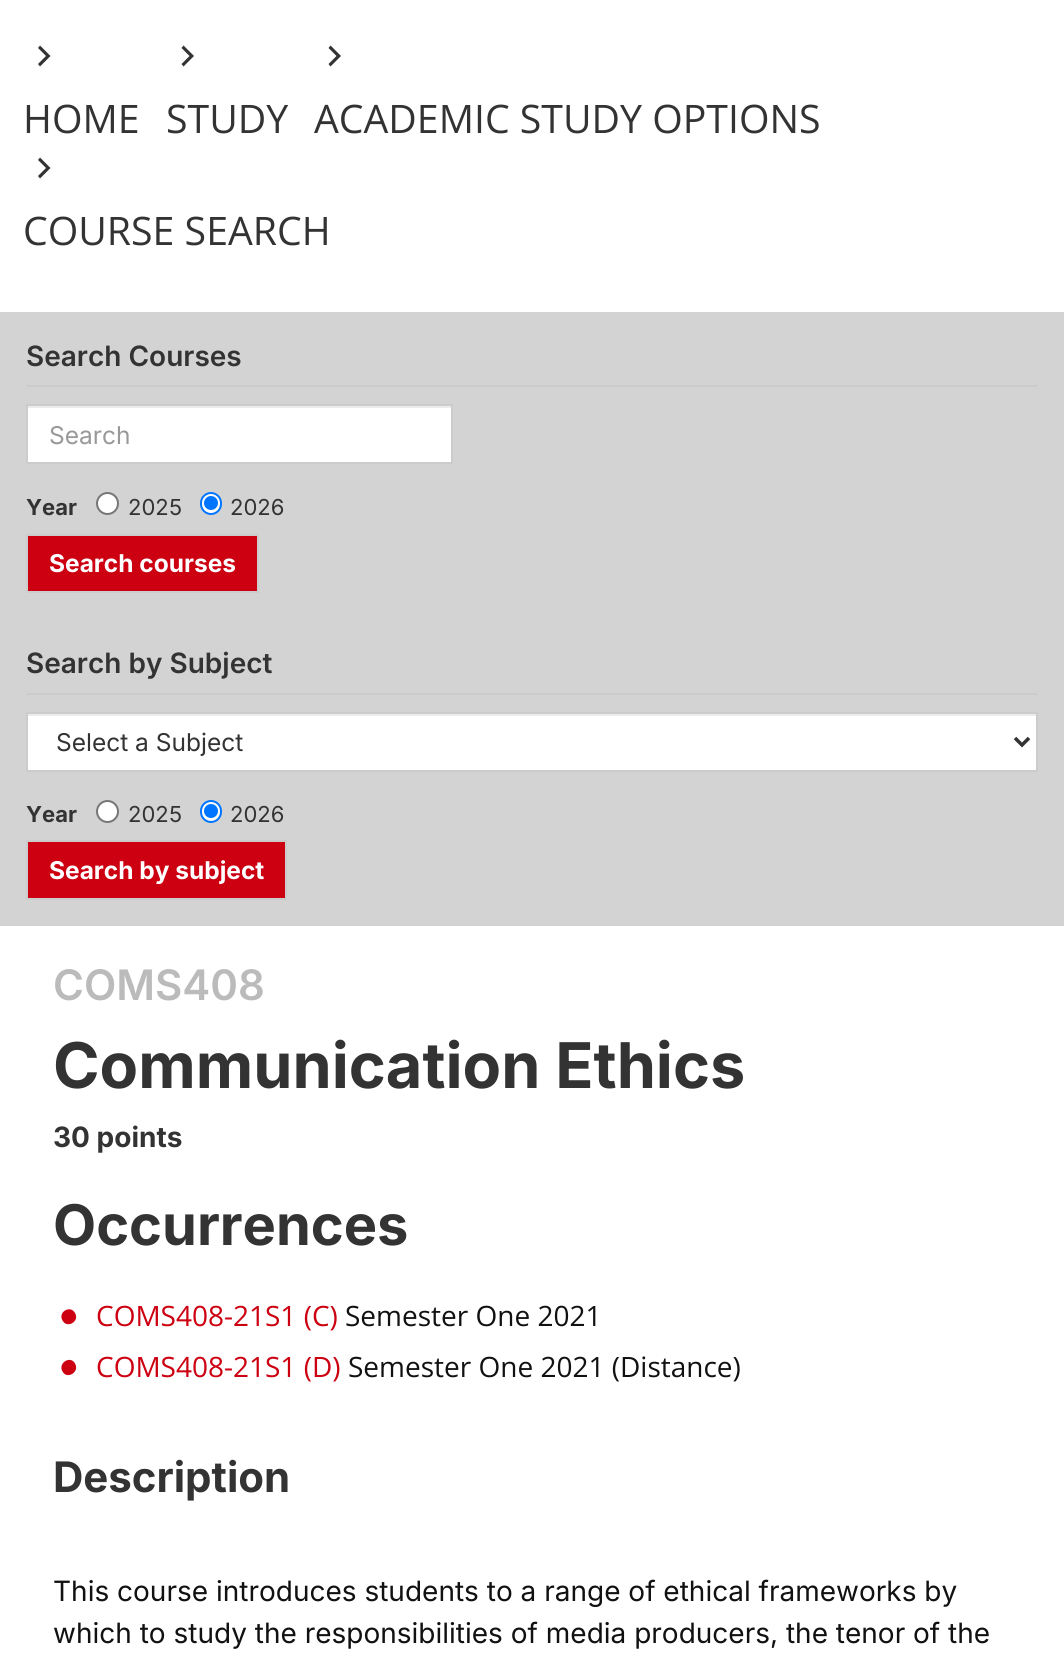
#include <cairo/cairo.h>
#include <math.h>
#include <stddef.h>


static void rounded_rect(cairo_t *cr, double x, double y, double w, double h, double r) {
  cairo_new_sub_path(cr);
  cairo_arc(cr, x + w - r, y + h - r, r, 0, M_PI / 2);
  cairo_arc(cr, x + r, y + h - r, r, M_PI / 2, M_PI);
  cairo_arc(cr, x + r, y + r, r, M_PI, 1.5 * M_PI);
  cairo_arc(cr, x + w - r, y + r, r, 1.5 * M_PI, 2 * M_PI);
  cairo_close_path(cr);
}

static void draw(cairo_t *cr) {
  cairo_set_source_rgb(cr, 1, 1, 1);
  cairo_paint(cr);
  cairo_set_source_rgb(cr, 51 / 255.0, 51 / 255.0, 51 / 255.0);
  cairo_new_path(cr);
  cairo_move_to(cr, 38, 64);
  cairo_line_to(cr, 46, 56);
  cairo_line_to(cr, 38, 48);
  cairo_line_to(cr, 40, 45.5);
  cairo_line_to(cr, 50.5, 56);
  cairo_line_to(cr, 40, 66.5);
  cairo_close_path(cr);
  cairo_fill(cr);
  cairo_new_path(cr);
  cairo_move_to(cr, 181.5, 64);
  cairo_line_to(cr, 189.5, 56);
  cairo_line_to(cr, 181.5, 48);
  cairo_line_to(cr, 183.5, 45.5);
  cairo_line_to(cr, 194, 56);
  cairo_line_to(cr, 183.5, 66.5);
  cairo_close_path(cr);
  cairo_fill(cr);
  cairo_new_path(cr);
  cairo_move_to(cr, 328.5, 64);
  cairo_line_to(cr, 336.5, 56);
  cairo_line_to(cr, 328.5, 48);
  cairo_line_to(cr, 330.5, 45.5);
  cairo_line_to(cr, 341, 56);
  cairo_line_to(cr, 330.5, 66.5);
  cairo_close_path(cr);
  cairo_fill(cr);
  cairo_new_path(cr);
  cairo_move_to(cr, 38, 176);
  cairo_line_to(cr, 46, 168);
  cairo_line_to(cr, 38, 160);
  cairo_line_to(cr, 40, 157.5);
  cairo_line_to(cr, 50.5, 168);
  cairo_line_to(cr, 40, 178.5);
  cairo_close_path(cr);
  cairo_fill(cr);
  cairo_set_source_rgb(cr, 211 / 255.0, 211 / 255.0, 211 / 255.0);
  cairo_rectangle(cr, 0, 312, 1064, 614);
  cairo_fill(cr);
  cairo_set_source_rgb(cr, 204 / 255.0, 204 / 255.0, 204 / 255.0);
  cairo_rectangle(cr, 26, 385, 1012, 2);
  cairo_fill(cr);
  cairo_set_source_rgb(cr, 1, 1, 1);
  cairo_rectangle(cr, 28, 408, 423, 54);
  cairo_fill(cr);
  cairo_set_source_rgb(cr, 236 / 255.0, 236 / 255.0, 236 / 255.0);
  cairo_rectangle(cr, 28, 406, 424, 2);
  cairo_fill(cr);
  cairo_rectangle(cr, 27, 405, 425, 58);
  cairo_set_source_rgb(cr, 204 / 255.0, 204 / 255.0, 204 / 255.0);
  cairo_stroke(cr);
  cairo_set_source_rgb(cr, 1, 1, 1);
  cairo_arc(cr, 107.5, 503.5, 10.5, 0, 2 * M_PI);
  cairo_fill_preserve(cr);
  cairo_set_source_rgb(cr, 118 / 255.0, 118 / 255.0, 118 / 255.0);
  cairo_stroke(cr);
  cairo_set_source_rgb(cr, 1, 1, 1);
  rounded_rect(cr, 201, 493, 20, 21, 10);
  cairo_fill_preserve(cr);
  cairo_set_source_rgb(cr, 0, 117 / 255.0, 1);
  cairo_stroke(cr);
  cairo_arc(cr, 211, 503, 7, 0, 2 * M_PI);
  cairo_fill(cr);
  cairo_set_source_rgb(cr, 204 / 255.0, 0, 17 / 255.0);
  cairo_rectangle(cr, 27, 535, 231, 57);
  cairo_fill_preserve(cr);
  cairo_set_source_rgb(cr, 204 / 255.0, 204 / 255.0, 204 / 255.0);
  cairo_stroke(cr);
  cairo_rectangle(cr, 26, 693, 1012, 2);
  cairo_fill(cr);
  cairo_set_source_rgb(cr, 1, 1, 1);
  cairo_rectangle(cr, 28, 716, 1008, 54);
  cairo_fill(cr);
  cairo_set_source_rgb(cr, 236 / 255.0, 236 / 255.0, 236 / 255.0);
  cairo_rectangle(cr, 28, 714, 1008, 2);
  cairo_fill(cr);
  cairo_rectangle(cr, 27, 713, 1010, 58);
  cairo_set_source_rgb(cr, 204 / 255.0, 204 / 255.0, 204 / 255.0);
  cairo_stroke(cr);
  cairo_new_path(cr);
  cairo_move_to(cr, 1015, 738);
  cairo_line_to(cr, 1022, 745);
  cairo_line_to(cr, 1029, 738);
  cairo_set_source_rgb(cr, 51 / 255.0, 51 / 255.0, 51 / 255.0);
  cairo_set_line_width(cr, 3.5);
  cairo_stroke(cr);
  cairo_set_source_rgb(cr, 1, 1, 1);
  cairo_arc(cr, 107.5, 811.5, 10.5, 0, 2 * M_PI);
  cairo_fill_preserve(cr);
  cairo_set_source_rgb(cr, 118 / 255.0, 118 / 255.0, 118 / 255.0);
  cairo_set_line_width(cr, 2);
  cairo_stroke(cr);
  cairo_set_source_rgb(cr, 1, 1, 1);
  rounded_rect(cr, 201, 801, 20, 21, 10);
  cairo_fill_preserve(cr);
  cairo_set_source_rgb(cr, 0, 117 / 255.0, 1);
  cairo_stroke(cr);
  cairo_arc(cr, 211, 811, 7, 0, 2 * M_PI);
  cairo_fill(cr);
  cairo_set_source_rgb(cr, 204 / 255.0, 0, 17 / 255.0);
  cairo_rectangle(cr, 27, 841, 259, 58);
  cairo_fill_preserve(cr);
  cairo_set_source_rgb(cr, 204 / 255.0, 204 / 255.0, 204 / 255.0);
  cairo_stroke(cr);
  cairo_set_source_rgb(cr, 204 / 255.0, 0, 17 / 255.0);
  cairo_new_path(cr);
  cairo_move_to(cr, 75, 1313);
  cairo_curve_to(cr, 80, 1321.5, 67, 1329, 62.5, 1320.5);
  cairo_curve_to(cr, 57.5, 1312, 70.5, 1304.5, 75, 1313);
  cairo_close_path(cr);
  cairo_fill(cr);
  cairo_new_path(cr);
  cairo_move_to(cr, 75, 1363.5);
  cairo_curve_to(cr, 80, 1372, 67, 1380, 62.5, 1371.5);
  cairo_curve_to(cr, 57.5, 1363, 70.5, 1355, 75, 1363.5);
  cairo_close_path(cr);
  cairo_fill(cr);
  cairo_select_font_face(cr, "Open Sans", CAIRO_FONT_SLANT_NORMAL, CAIRO_FONT_WEIGHT_NORMAL);
  cairo_set_font_size(cr, 39.25);
  cairo_set_source_rgb(cr, 51 / 255.0, 51 / 255.0, 51 / 255.0);
  cairo_move_to(cr, 23, 133);
  cairo_show_text(cr, "HOME");
  cairo_move_to(cr, 166, 133);
  cairo_show_text(cr, "STUDY");
  cairo_move_to(cr, 314, 133);
  cairo_show_text(cr, "ACADEMIC STUDY OPTIONS");
  cairo_move_to(cr, 23, 245);
  cairo_show_text(cr, "COURSE SEARCH");
  cairo_select_font_face(cr, "Inter SemiBold", CAIRO_FONT_SLANT_NORMAL, CAIRO_FONT_WEIGHT_NORMAL);
  cairo_set_font_size(cr, 28);
  cairo_move_to(cr, 26, 366);
  cairo_show_text(cr, "Search Courses");
  cairo_select_font_face(cr, "Inter", CAIRO_FONT_SLANT_NORMAL, CAIRO_FONT_WEIGHT_NORMAL);
  cairo_set_font_size(cr, 24.5);
  cairo_set_source_rgb(cr, 153 / 255.0, 153 / 255.0, 153 / 255.0);
  cairo_move_to(cr, 49, 444);
  cairo_show_text(cr, "Search");
  cairo_select_font_face(cr, "Inter", CAIRO_FONT_SLANT_NORMAL, CAIRO_FONT_WEIGHT_BOLD);
  cairo_set_font_size(cr, 22);
  cairo_set_source_rgb(cr, 51 / 255.0, 51 / 255.0, 51 / 255.0);
  cairo_move_to(cr, 26, 515);
  cairo_show_text(cr, "Year");
  cairo_select_font_face(cr, "Inter", CAIRO_FONT_SLANT_NORMAL, CAIRO_FONT_WEIGHT_NORMAL);
  cairo_move_to(cr, 128, 515);
  cairo_show_text(cr, "2025");
  cairo_move_to(cr, 230, 515);
  cairo_show_text(cr, "2026");
  cairo_select_font_face(cr, "Inter", CAIRO_FONT_SLANT_NORMAL, CAIRO_FONT_WEIGHT_BOLD);
  cairo_set_font_size(cr, 24.5);
  cairo_set_source_rgb(cr, 1, 1, 1);
  cairo_move_to(cr, 49, 572);
  cairo_show_text(cr, "Search courses");
  cairo_select_font_face(cr, "Inter SemiBold", CAIRO_FONT_SLANT_NORMAL, CAIRO_FONT_WEIGHT_NORMAL);
  cairo_set_font_size(cr, 28);
  cairo_set_source_rgb(cr, 51 / 255.0, 51 / 255.0, 51 / 255.0);
  cairo_move_to(cr, 26, 673);
  cairo_show_text(cr, "Search by Subject");
  cairo_select_font_face(cr, "Inter", CAIRO_FONT_SLANT_NORMAL, CAIRO_FONT_WEIGHT_NORMAL);
  cairo_set_font_size(cr, 24.5);
  cairo_move_to(cr, 56, 751);
  cairo_show_text(cr, "Select a Subject");
  cairo_select_font_face(cr, "Inter", CAIRO_FONT_SLANT_NORMAL, CAIRO_FONT_WEIGHT_BOLD);
  cairo_set_font_size(cr, 22);
  cairo_move_to(cr, 26, 822);
  cairo_show_text(cr, "Year");
  cairo_select_font_face(cr, "Inter", CAIRO_FONT_SLANT_NORMAL, CAIRO_FONT_WEIGHT_NORMAL);
  cairo_move_to(cr, 128, 822);
  cairo_show_text(cr, "2025");
  cairo_move_to(cr, 230, 822);
  cairo_show_text(cr, "2026");
  cairo_select_font_face(cr, "Inter", CAIRO_FONT_SLANT_NORMAL, CAIRO_FONT_WEIGHT_BOLD);
  cairo_set_font_size(cr, 24.5);
  cairo_set_source_rgb(cr, 1, 1, 1);
  cairo_move_to(cr, 49, 879);
  cairo_show_text(cr, "Search by subject");
  cairo_select_font_face(cr, "Inter SemiBold", CAIRO_FONT_SLANT_NORMAL, CAIRO_FONT_WEIGHT_NORMAL);
  cairo_set_font_size(cr, 42);
  cairo_set_source_rgb(cr, 187 / 255.0, 187 / 255.0, 187 / 255.0);
  cairo_move_to(cr, 53, 1000);
  cairo_show_text(cr, "COMS408");
  cairo_select_font_face(cr, "Inter", CAIRO_FONT_SLANT_NORMAL, CAIRO_FONT_WEIGHT_BOLD);
  cairo_set_font_size(cr, 63);
  cairo_set_source_rgb(cr, 51 / 255.0, 51 / 255.0, 51 / 255.0);
  cairo_move_to(cr, 53, 1088);
  cairo_show_text(cr, "Communication Ethics");
  cairo_set_font_size(cr, 28);
  cairo_move_to(cr, 53, 1147);
  cairo_show_text(cr, "30 points");
  cairo_set_font_size(cr, 56);
  cairo_move_to(cr, 53, 1245);
  cairo_show_text(cr, "Occurrences");
  cairo_select_font_face(cr, "Open Sans", CAIRO_FONT_SLANT_NORMAL, CAIRO_FONT_WEIGHT_NORMAL);
  cairo_set_font_size(cr, 28);
  cairo_set_source_rgb(cr, 204 / 255.0, 0, 17 / 255.0);
  cairo_move_to(cr, 96, 1326);
  cairo_show_text(cr, "COMS408-21S1 (C)");
  cairo_set_source_rgb(cr, 17 / 255.0, 17 / 255.0, 17 / 255.0);
  cairo_move_to(cr, 345, 1326);
  cairo_show_text(cr, "Semester One 2021");
  cairo_set_source_rgb(cr, 204 / 255.0, 0, 17 / 255.0);
  cairo_move_to(cr, 96, 1377);
  cairo_show_text(cr, "COMS408-21S1 (D)");
  cairo_set_source_rgb(cr, 17 / 255.0, 17 / 255.0, 17 / 255.0);
  cairo_move_to(cr, 348, 1377);
  cairo_show_text(cr, "Semester One 2021 (Distance)");
  cairo_select_font_face(cr, "Inter", CAIRO_FONT_SLANT_NORMAL, CAIRO_FONT_WEIGHT_BOLD);
  cairo_set_font_size(cr, 42);
  cairo_set_source_rgb(cr, 51 / 255.0, 51 / 255.0, 51 / 255.0);
  cairo_move_to(cr, 53, 1492);
  cairo_show_text(cr, "Description");
  cairo_select_font_face(cr, "Inter", CAIRO_FONT_SLANT_NORMAL, CAIRO_FONT_WEIGHT_NORMAL);
  cairo_set_font_size(cr, 28);
  cairo_set_source_rgb(cr, 17 / 255.0, 17 / 255.0, 17 / 255.0);
  cairo_move_to(cr, 53, 1601);
  cairo_show_text(cr, "This course introduces students to a range of ethical frameworks by");
  cairo_move_to(cr, 53, 1643);
  cairo_show_text(cr, "which to study the responsibilities of media producers, the tenor of the");
}

int main(void) {
  cairo_surface_t *surface = cairo_image_surface_create(CAIRO_FORMAT_RGB24, 1064, 1660);
  cairo_t *cr = cairo_create(surface);
  cairo_font_options_t *options = cairo_font_options_create();
  cairo_font_options_set_hint_metrics(options, CAIRO_HINT_METRICS_OFF);
  cairo_font_options_set_hint_style(options, CAIRO_HINT_STYLE_NONE);
  cairo_set_font_options(cr, options);
  cairo_set_miter_limit(cr, 4);
  draw(cr);
  cairo_surface_write_to_png(surface, "out.png");
  cairo_font_options_destroy(options);
  cairo_destroy(cr);
  cairo_surface_destroy(surface);
  return 0;
}
